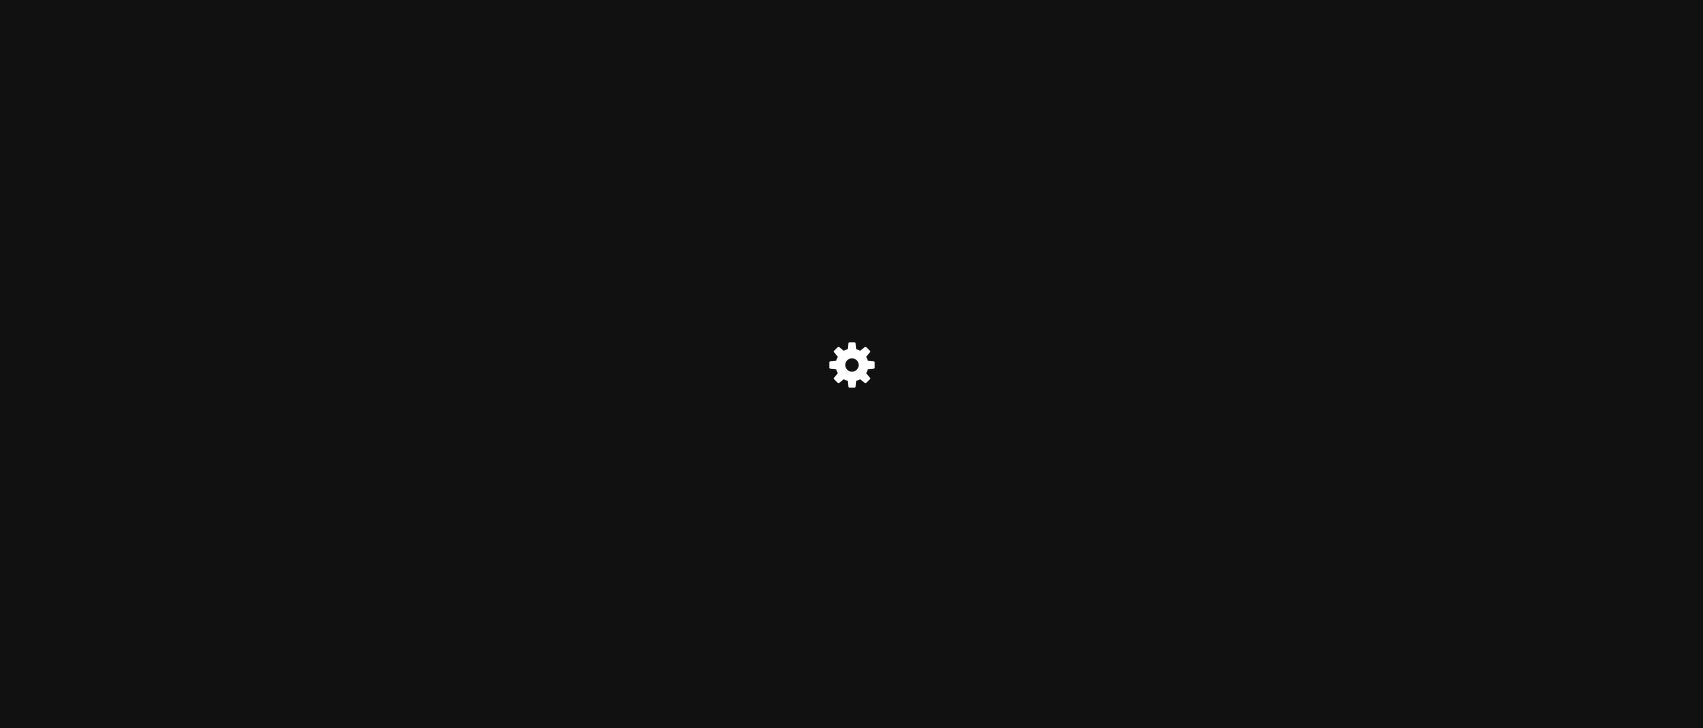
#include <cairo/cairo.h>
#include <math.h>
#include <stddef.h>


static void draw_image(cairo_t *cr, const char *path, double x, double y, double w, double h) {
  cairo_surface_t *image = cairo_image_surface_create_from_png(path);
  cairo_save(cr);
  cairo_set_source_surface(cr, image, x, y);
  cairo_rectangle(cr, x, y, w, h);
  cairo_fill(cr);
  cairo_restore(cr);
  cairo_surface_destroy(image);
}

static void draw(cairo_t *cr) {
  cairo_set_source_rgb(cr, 17 / 255.0, 17 / 255.0, 17 / 255.0);
  cairo_paint(cr);
  draw_image(cr, "images/1.png", 829, 342, 46, 46);
}

int main(void) {
  cairo_surface_t *surface = cairo_image_surface_create(CAIRO_FORMAT_RGB24, 1703, 728);
  cairo_t *cr = cairo_create(surface);
  cairo_font_options_t *options = cairo_font_options_create();
  cairo_font_options_set_hint_metrics(options, CAIRO_HINT_METRICS_OFF);
  cairo_font_options_set_hint_style(options, CAIRO_HINT_STYLE_NONE);
  cairo_set_font_options(cr, options);
  cairo_set_miter_limit(cr, 4);
  draw(cr);
  cairo_surface_write_to_png(surface, "out.png");
  cairo_font_options_destroy(options);
  cairo_destroy(cr);
  cairo_surface_destroy(surface);
  return 0;
}
